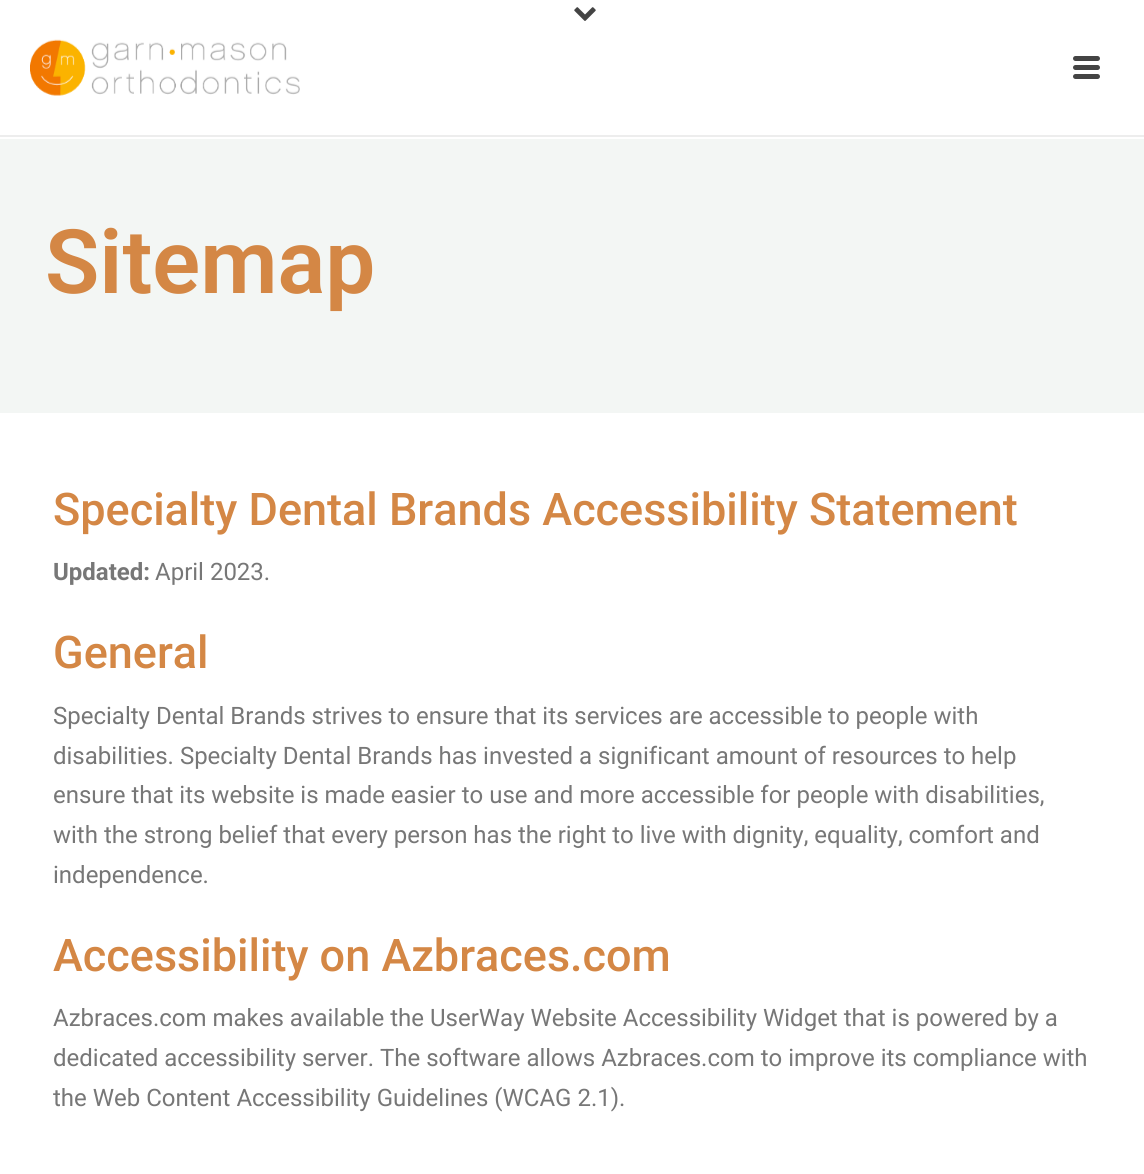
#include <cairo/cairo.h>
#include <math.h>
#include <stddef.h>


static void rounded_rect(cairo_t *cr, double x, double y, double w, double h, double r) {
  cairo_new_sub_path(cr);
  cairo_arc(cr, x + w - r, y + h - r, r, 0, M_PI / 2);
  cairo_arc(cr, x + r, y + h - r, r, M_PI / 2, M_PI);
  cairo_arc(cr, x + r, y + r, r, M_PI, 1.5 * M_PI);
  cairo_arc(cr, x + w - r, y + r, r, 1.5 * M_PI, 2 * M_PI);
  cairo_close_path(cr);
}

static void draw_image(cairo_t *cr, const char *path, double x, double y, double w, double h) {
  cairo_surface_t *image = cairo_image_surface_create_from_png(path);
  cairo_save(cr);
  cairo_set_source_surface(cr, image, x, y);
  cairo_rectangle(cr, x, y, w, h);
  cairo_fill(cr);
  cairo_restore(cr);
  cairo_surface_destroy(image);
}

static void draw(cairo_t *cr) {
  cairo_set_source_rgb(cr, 1, 1, 1);
  cairo_paint(cr);
  cairo_set_source_rgb(cr, 237 / 255.0, 237 / 255.0, 237 / 255.0);
  cairo_rectangle(cr, 0, 135, 1144, 2);
  cairo_fill(cr);
  draw_image(cr, "images/1.png", 574, 7, 22, 14);
  draw_image(cr, "images/2.png", 30, 39, 270, 57);
  cairo_set_source_rgb(cr, 68 / 255.0, 68 / 255.0, 68 / 255.0);
  rounded_rect(cr, 1073, 56, 27, 5, 2.5);
  cairo_fill(cr);
  rounded_rect(cr, 1073, 65, 27, 5, 2.5);
  cairo_fill(cr);
  rounded_rect(cr, 1073, 74, 27, 5, 2.5);
  cairo_fill(cr);
  cairo_set_source_rgb(cr, 243 / 255.0, 246 / 255.0, 244 / 255.0);
  cairo_rectangle(cr, 0, 139, 1144, 274);
  cairo_fill(cr);
  cairo_select_font_face(cr, "Roboto SemiBold", CAIRO_FONT_SLANT_NORMAL, CAIRO_FONT_WEIGHT_NORMAL);
  cairo_set_font_size(cr, 89);
  cairo_set_source_rgb(cr, 212 / 255.0, 135 / 255.0, 69 / 255.0);
  cairo_move_to(cr, 45, 293);
  cairo_show_text(cr, "Sitemap");
  cairo_select_font_face(cr, "Roboto Medium", CAIRO_FONT_SLANT_NORMAL, CAIRO_FONT_WEIGHT_NORMAL);
  cairo_set_font_size(cr, 45);
  cairo_move_to(cr, 53, 525);
  cairo_show_text(cr, "Specialty Dental Brands Accessibility Statement");
  cairo_select_font_face(cr, "Roboto", CAIRO_FONT_SLANT_NORMAL, CAIRO_FONT_WEIGHT_BOLD);
  cairo_set_font_size(cr, 24);
  cairo_set_source_rgb(cr, 119 / 255.0, 119 / 255.0, 119 / 255.0);
  cairo_move_to(cr, 53, 580);
  cairo_show_text(cr, "Updated:");
  cairo_select_font_face(cr, "Roboto", CAIRO_FONT_SLANT_NORMAL, CAIRO_FONT_WEIGHT_NORMAL);
  cairo_move_to(cr, 155, 580);
  cairo_show_text(cr, "April 2023.");
  cairo_select_font_face(cr, "Roboto Medium", CAIRO_FONT_SLANT_NORMAL, CAIRO_FONT_WEIGHT_NORMAL);
  cairo_set_font_size(cr, 45);
  cairo_set_source_rgb(cr, 212 / 255.0, 135 / 255.0, 69 / 255.0);
  cairo_move_to(cr, 53, 668);
  cairo_show_text(cr, "General");
  cairo_select_font_face(cr, "Roboto", CAIRO_FONT_SLANT_NORMAL, CAIRO_FONT_WEIGHT_NORMAL);
  cairo_set_font_size(cr, 24);
  cairo_set_source_rgb(cr, 119 / 255.0, 119 / 255.0, 119 / 255.0);
  cairo_move_to(cr, 53, 724);
  cairo_show_text(cr, "Specialty Dental Brands strives to ensure that its services are accessible to people with");
  cairo_move_to(cr, 53, 764);
  cairo_show_text(cr, "disabilities. Specialty Dental Brands has invested a significant amount of resources to help");
  cairo_move_to(cr, 53, 803);
  cairo_show_text(cr, "ensure that its website is made easier to use and more accessible for people with disabilities,");
  cairo_move_to(cr, 53, 843);
  cairo_show_text(cr, "with the strong belief that every person has the right to live with dignity, equality, comfort and");
  cairo_move_to(cr, 53, 883);
  cairo_show_text(cr, "independence.");
  cairo_select_font_face(cr, "Roboto Medium", CAIRO_FONT_SLANT_NORMAL, CAIRO_FONT_WEIGHT_NORMAL);
  cairo_set_font_size(cr, 45);
  cairo_set_source_rgb(cr, 212 / 255.0, 135 / 255.0, 69 / 255.0);
  cairo_move_to(cr, 53, 971);
  cairo_show_text(cr, "Accessibility on Azbraces.com");
  cairo_select_font_face(cr, "Roboto", CAIRO_FONT_SLANT_NORMAL, CAIRO_FONT_WEIGHT_NORMAL);
  cairo_set_font_size(cr, 24);
  cairo_set_source_rgb(cr, 119 / 255.0, 119 / 255.0, 119 / 255.0);
  cairo_move_to(cr, 53, 1026);
  cairo_show_text(cr, "Azbraces.com makes available the UserWay Website Accessibility Widget that is powered by a");
  cairo_move_to(cr, 53, 1066);
  cairo_show_text(cr, "dedicated accessibility server. The software allows Azbraces.com to improve its compliance with");
  cairo_move_to(cr, 53, 1106);
  cairo_show_text(cr, "the Web Content Accessibility Guidelines (WCAG 2.1).");
}

int main(void) {
  cairo_surface_t *surface = cairo_image_surface_create(CAIRO_FORMAT_RGB24, 1144, 1174);
  cairo_t *cr = cairo_create(surface);
  cairo_font_options_t *options = cairo_font_options_create();
  cairo_font_options_set_hint_metrics(options, CAIRO_HINT_METRICS_OFF);
  cairo_font_options_set_hint_style(options, CAIRO_HINT_STYLE_NONE);
  cairo_set_font_options(cr, options);
  cairo_set_miter_limit(cr, 4);
  draw(cr);
  cairo_surface_write_to_png(surface, "out.png");
  cairo_font_options_destroy(options);
  cairo_destroy(cr);
  cairo_surface_destroy(surface);
  return 0;
}
